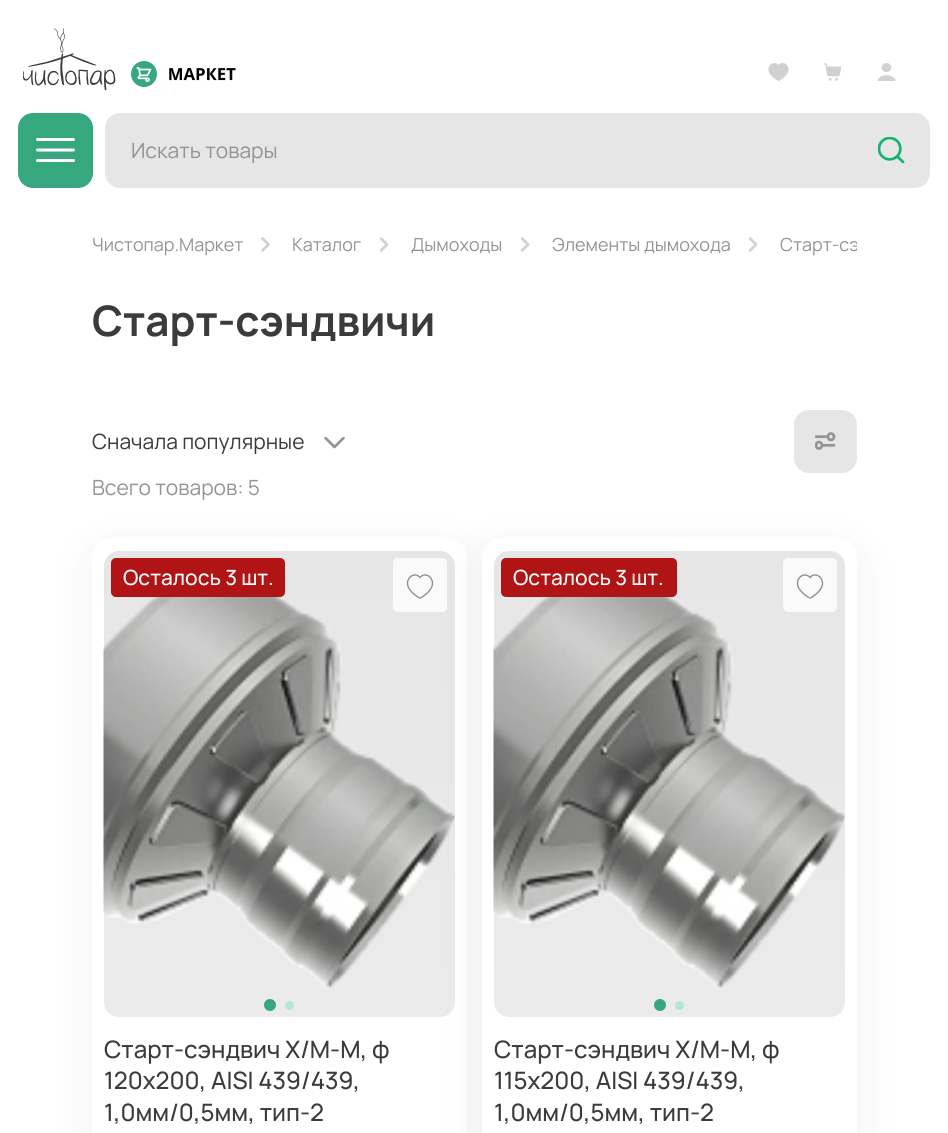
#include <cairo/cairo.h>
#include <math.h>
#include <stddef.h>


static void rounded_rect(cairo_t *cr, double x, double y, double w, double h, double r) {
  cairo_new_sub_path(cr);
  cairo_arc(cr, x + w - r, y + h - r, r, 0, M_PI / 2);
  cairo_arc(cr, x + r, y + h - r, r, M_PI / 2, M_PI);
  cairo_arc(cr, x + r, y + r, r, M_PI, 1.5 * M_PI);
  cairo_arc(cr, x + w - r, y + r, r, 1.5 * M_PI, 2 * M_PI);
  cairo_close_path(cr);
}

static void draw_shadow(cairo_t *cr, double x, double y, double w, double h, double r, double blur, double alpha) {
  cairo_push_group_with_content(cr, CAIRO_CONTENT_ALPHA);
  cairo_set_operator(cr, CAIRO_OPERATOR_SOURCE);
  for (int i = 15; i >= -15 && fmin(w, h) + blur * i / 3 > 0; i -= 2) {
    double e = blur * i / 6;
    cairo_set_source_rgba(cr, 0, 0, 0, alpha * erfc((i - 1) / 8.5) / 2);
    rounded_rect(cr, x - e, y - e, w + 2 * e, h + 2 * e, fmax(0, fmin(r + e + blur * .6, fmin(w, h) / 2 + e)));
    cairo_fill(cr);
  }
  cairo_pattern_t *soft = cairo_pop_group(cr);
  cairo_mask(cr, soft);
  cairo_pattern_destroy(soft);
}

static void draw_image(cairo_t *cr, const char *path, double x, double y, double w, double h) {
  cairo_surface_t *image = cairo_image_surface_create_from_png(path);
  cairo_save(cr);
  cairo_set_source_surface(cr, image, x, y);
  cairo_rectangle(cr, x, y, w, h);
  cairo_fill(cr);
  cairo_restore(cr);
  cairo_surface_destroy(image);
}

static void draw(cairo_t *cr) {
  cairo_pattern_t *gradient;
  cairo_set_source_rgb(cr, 1, 1, 1);
  cairo_paint(cr);
  draw_image(cr, "images/1.png", 23, 28, 213, 63);
  draw_image(cr, "images/2.png", 768, 63, 21, 18);
  draw_image(cr, "images/3.png", 824, 63, 18, 18);
  draw_image(cr, "images/4.png", 877, 63, 19, 18);
  cairo_set_source_rgb(cr, 55 / 255.0, 167 / 255.0, 127 / 255.0);
  rounded_rect(cr, 18, 113, 75, 75, 15);
  cairo_fill(cr);
  cairo_new_path(cr);
  cairo_move_to(cr, 37.5, 139.5);
  cairo_line_to(cr, 73.5, 139.5);
  cairo_move_to(cr, 37.5, 150);
  cairo_line_to(cr, 73.5, 150);
  cairo_move_to(cr, 37.5, 160.5);
  cairo_line_to(cr, 73.5, 160.5);
  cairo_set_source_rgb(cr, 1, 1, 1);
  cairo_set_line_width(cr, 3);
  cairo_set_line_cap(cr, CAIRO_LINE_CAP_ROUND);
  cairo_stroke(cr);
  cairo_set_source_rgb(cr, 230 / 255.0, 230 / 255.0, 230 / 255.0);
  rounded_rect(cr, 105, 113, 825, 75, 15);
  cairo_fill(cr);
  draw_image(cr, "images/5.png", 878, 137, 27, 27);
  draw_image(cr, "images/6.png", 261, 237, 9, 15);
  draw_image(cr, "images/7.png", 380, 237, 9, 15);
  draw_image(cr, "images/7.png", 521, 237, 9, 15);
  draw_image(cr, "images/7.png", 749, 237, 9, 15);
  draw_image(cr, "images/8.png", 324, 437, 21, 12);
  rounded_rect(cr, 794, 410, 63, 63, 15);
  cairo_fill(cr);
  draw_image(cr, "images/9.png", 815, 432, 21, 18);
  cairo_set_source_rgb(cr, 67 / 255.0, 67 / 255.0, 67 / 255.0);
  draw_shadow(cr, 92, 551, 375, 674, 18, 24.5, 0.08);
  cairo_set_source_rgb(cr, 1, 1, 1);
  rounded_rect(cr, 92, 539, 375, 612, 18);
  cairo_fill(cr);
  gradient = cairo_pattern_create_linear(279, 551, 279, 1017);
  cairo_pattern_add_color_stop_rgba(gradient, 0, 230 / 255.0, 230 / 255.0, 230 / 255.0, 1);
  cairo_pattern_add_color_stop_rgba(gradient, 1, 235 / 255.0, 235 / 255.0, 235 / 255.0, 1);
  cairo_set_source(cr, gradient);
  cairo_pattern_destroy(gradient);
  rounded_rect(cr, 104, 551, 351, 466, 15);
  cairo_fill(cr);
  draw_image(cr, "images/10.png", 103, 596, 352, 394);
  cairo_set_source_rgb(cr, 55 / 255.0, 167 / 255.0, 127 / 255.0);
  cairo_arc(cr, 270, 1005, 6, 0, 2 * M_PI);
  cairo_fill(cr);
  cairo_set_source_rgb(cr, 185 / 255.0, 228 / 255.0, 219 / 255.0);
  cairo_arc(cr, 289.5, 1005.5, 4.5, 0, 2 * M_PI);
  cairo_fill(cr);
  cairo_set_source_rgb(cr, 176 / 255.0, 20 / 255.0, 20 / 255.0);
  rounded_rect(cr, 111, 558, 174, 39, 5);
  cairo_fill(cr);
  cairo_set_source_rgb(cr, 67 / 255.0, 67 / 255.0, 67 / 255.0);
  draw_shadow(cr, 482, 551, 375, 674, 18, 24.5, 0.08);
  cairo_set_source_rgb(cr, 250 / 255.0, 250 / 255.0, 250 / 255.0);
  rounded_rect(cr, 393, 558, 54, 54, 5);
  cairo_fill(cr);
  draw_image(cr, "images/11.png", 406, 574, 28, 25);
  cairo_set_source_rgb(cr, 1, 1, 1);
  rounded_rect(cr, 482, 539, 375, 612, 18);
  cairo_fill(cr);
  gradient = cairo_pattern_create_linear(669, 551, 669, 1017);
  cairo_pattern_add_color_stop_rgba(gradient, 0, 230 / 255.0, 230 / 255.0, 230 / 255.0, 1);
  cairo_pattern_add_color_stop_rgba(gradient, 1, 235 / 255.0, 235 / 255.0, 235 / 255.0, 1);
  cairo_set_source(cr, gradient);
  cairo_pattern_destroy(gradient);
  rounded_rect(cr, 494, 551, 351, 466, 15);
  cairo_fill(cr);
  draw_image(cr, "images/12.png", 493, 596, 352, 394);
  cairo_set_source_rgb(cr, 55 / 255.0, 167 / 255.0, 127 / 255.0);
  cairo_arc(cr, 660, 1005, 6, 0, 2 * M_PI);
  cairo_fill(cr);
  cairo_set_source_rgb(cr, 185 / 255.0, 228 / 255.0, 219 / 255.0);
  cairo_arc(cr, 679.5, 1005.5, 4.5, 0, 2 * M_PI);
  cairo_fill(cr);
  cairo_set_source_rgb(cr, 176 / 255.0, 20 / 255.0, 20 / 255.0);
  rounded_rect(cr, 501, 558, 176, 39, 5);
  cairo_fill(cr);
  cairo_set_source_rgb(cr, 250 / 255.0, 250 / 255.0, 250 / 255.0);
  rounded_rect(cr, 783, 558, 54, 54, 5);
  cairo_fill(cr);
  draw_image(cr, "images/11.png", 796, 574, 28, 25);
  cairo_select_font_face(cr, "Manrope", CAIRO_FONT_SLANT_NORMAL, CAIRO_FONT_WEIGHT_NORMAL);
  cairo_set_font_size(cr, 21);
  cairo_set_source_rgb(cr, 148 / 255.0, 148 / 255.0, 148 / 255.0);
  cairo_move_to(cr, 131, 158);
  cairo_show_text(cr, "Искать товары");
  cairo_set_font_size(cr, 18);
  cairo_move_to(cr, 92, 251);
  cairo_show_text(cr, "Чистопар.Маркет");
  cairo_move_to(cr, 292, 251);
  cairo_show_text(cr, "Каталог");
  cairo_move_to(cr, 411, 251);
  cairo_show_text(cr, "Дымоходы");
  cairo_move_to(cr, 552, 251);
  cairo_show_text(cr, "Элементы дымохода");
  cairo_save(cr);
  cairo_rectangle(cr, 92, 233, 765, 39);
  cairo_clip(cr);
  cairo_move_to(cr, 780, 251);
  cairo_show_text(cr, "Старт-сэ");
  cairo_restore(cr);
  cairo_select_font_face(cr, "Manrope", CAIRO_FONT_SLANT_NORMAL, CAIRO_FONT_WEIGHT_BOLD);
  cairo_set_font_size(cr, 42);
  cairo_set_source_rgb(cr, 59 / 255.0, 59 / 255.0, 59 / 255.0);
  cairo_move_to(cr, 92, 336);
  cairo_show_text(cr, "Старт-сэндвичи");
  cairo_select_font_face(cr, "Manrope", CAIRO_FONT_SLANT_NORMAL, CAIRO_FONT_WEIGHT_NORMAL);
  cairo_set_font_size(cr, 21);
  cairo_move_to(cr, 92, 449);
  cairo_show_text(cr, "Сначала популярные");
  cairo_set_source_rgb(cr, 148 / 255.0, 148 / 255.0, 148 / 255.0);
  cairo_move_to(cr, 92, 495);
  cairo_show_text(cr, "Всего товаров: 5");
  cairo_select_font_face(cr, "Manrope Medium", CAIRO_FONT_SLANT_NORMAL, CAIRO_FONT_WEIGHT_NORMAL);
  cairo_set_source_rgb(cr, 1, 1, 1);
  cairo_move_to(cr, 123, 585);
  cairo_show_text(cr, "Осталось 3 шт.");
  cairo_set_font_size(cr, 24);
  cairo_set_source_rgb(cr, 59 / 255.0, 59 / 255.0, 59 / 255.0);
  cairo_move_to(cr, 104, 1058);
  cairo_show_text(cr, "Старт-сэндвич Х/М-М, ф");
  cairo_move_to(cr, 104, 1089);
  cairo_show_text(cr, "120х200, AISI 439/439,");
  cairo_move_to(cr, 104, 1121);
  cairo_show_text(cr, "1,0мм/0,5мм, тип-2");
  cairo_set_font_size(cr, 21);
  cairo_set_source_rgb(cr, 1, 1, 1);
  cairo_move_to(cr, 513, 585);
  cairo_show_text(cr, "Осталось 3 шт.");
  cairo_set_font_size(cr, 24);
  cairo_set_source_rgb(cr, 59 / 255.0, 59 / 255.0, 59 / 255.0);
  cairo_move_to(cr, 494, 1058);
  cairo_show_text(cr, "Старт-сэндвич Х/М-М, ф");
  cairo_move_to(cr, 494, 1089);
  cairo_show_text(cr, "115х200, AISI 439/439,");
  cairo_move_to(cr, 494, 1121);
  cairo_show_text(cr, "1,0мм/0,5мм, тип-2");
}

int main(void) {
  cairo_surface_t *surface = cairo_image_surface_create(CAIRO_FORMAT_RGB24, 948, 1133);
  cairo_t *cr = cairo_create(surface);
  cairo_font_options_t *options = cairo_font_options_create();
  cairo_font_options_set_hint_metrics(options, CAIRO_HINT_METRICS_OFF);
  cairo_font_options_set_hint_style(options, CAIRO_HINT_STYLE_NONE);
  cairo_set_font_options(cr, options);
  cairo_set_miter_limit(cr, 4);
  draw(cr);
  cairo_surface_write_to_png(surface, "out.png");
  cairo_font_options_destroy(options);
  cairo_destroy(cr);
  cairo_surface_destroy(surface);
  return 0;
}
